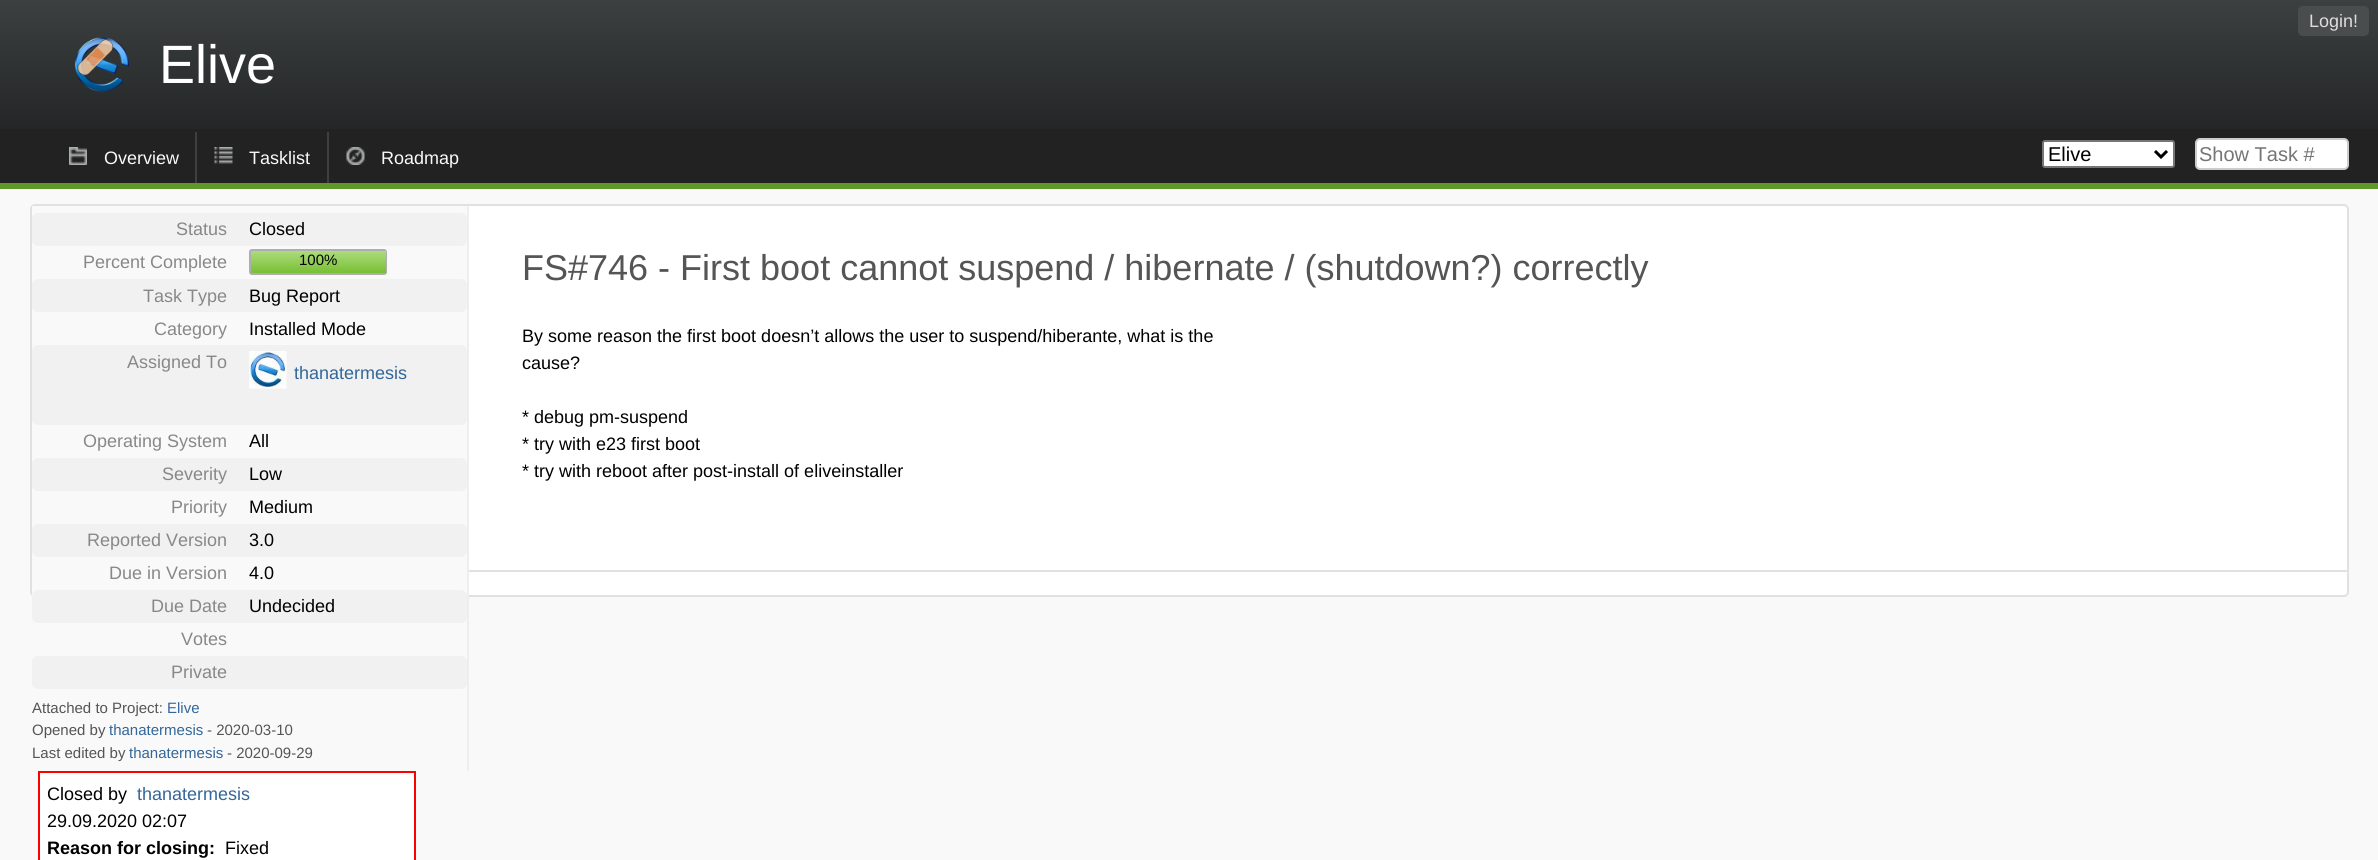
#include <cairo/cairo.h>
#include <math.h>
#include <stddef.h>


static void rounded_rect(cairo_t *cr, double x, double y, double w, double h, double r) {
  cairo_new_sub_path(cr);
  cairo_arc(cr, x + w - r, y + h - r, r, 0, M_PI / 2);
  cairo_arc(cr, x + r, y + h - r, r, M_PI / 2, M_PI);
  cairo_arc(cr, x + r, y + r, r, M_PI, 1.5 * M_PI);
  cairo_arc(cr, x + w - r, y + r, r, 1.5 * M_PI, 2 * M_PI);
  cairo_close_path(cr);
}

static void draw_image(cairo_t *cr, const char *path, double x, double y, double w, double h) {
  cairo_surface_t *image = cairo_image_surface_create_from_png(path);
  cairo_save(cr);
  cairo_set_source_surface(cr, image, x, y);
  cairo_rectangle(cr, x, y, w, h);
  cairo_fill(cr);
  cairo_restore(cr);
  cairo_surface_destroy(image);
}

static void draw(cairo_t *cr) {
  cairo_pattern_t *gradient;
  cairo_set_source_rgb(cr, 249 / 255.0, 249 / 255.0, 249 / 255.0);
  cairo_paint(cr);
  gradient = cairo_pattern_create_linear(1190, 0, 1190, 129);
  cairo_pattern_add_color_stop_rgba(gradient, 0, 60 / 255.0, 64 / 255.0, 65 / 255.0, 1);
  cairo_pattern_add_color_stop_rgba(gradient, 1, 36 / 255.0, 38 / 255.0, 39 / 255.0, 1);
  cairo_set_source(cr, gradient);
  cairo_pattern_destroy(gradient);
  cairo_rectangle(cr, 0, 0, 2378, 129);
  cairo_fill(cr);
  cairo_set_source_rgb(cr, 73 / 255.0, 77 / 255.0, 78 / 255.0);
  rounded_rect(cr, 2298, 6, 71, 30, 5);
  cairo_fill(cr);
  draw_image(cr, "images/1.png", 75, 37, 54, 55);
  cairo_set_source_rgb(cr, 34 / 255.0, 34 / 255.0, 34 / 255.0);
  cairo_rectangle(cr, 0, 129, 2378, 54);
  cairo_fill(cr);
  cairo_set_source_rgb(cr, 95 / 255.0, 151 / 255.0, 41 / 255.0);
  cairo_rectangle(cr, 0, 183, 2378, 6);
  cairo_fill(cr);
  draw_image(cr, "images/2.png", 69, 147, 18, 18);
  draw_image(cr, "images/3.png", 214, 147, 19, 17);
  cairo_set_source_rgb(cr, 60 / 255.0, 64 / 255.0, 65 / 255.0);
  cairo_rectangle(cr, 195, 132, 2, 51);
  cairo_fill(cr);
  draw_image(cr, "images/4.png", 346, 147, 19, 18);
  cairo_rectangle(cr, 327, 132, 2, 51);
  cairo_fill(cr);
  cairo_set_source_rgb(cr, 1, 1, 1);
  rounded_rect(cr, 2043, 141, 131, 26, 2);
  cairo_fill_preserve(cr);
  cairo_set_source_rgb(cr, 118 / 255.0, 118 / 255.0, 118 / 255.0);
  cairo_stroke(cr);
  cairo_new_path(cr);
  cairo_move_to(cr, 2155, 151);
  cairo_line_to(cr, 2161, 157);
  cairo_line_to(cr, 2167, 151);
  cairo_set_source_rgb(cr, 0, 0, 0);
  cairo_set_line_width(cr, 3);
  cairo_stroke(cr);
  cairo_set_source_rgb(cr, 1, 1, 1);
  rounded_rect(cr, 2196, 139, 152, 30, 4);
  cairo_fill_preserve(cr);
  cairo_set_source_rgb(cr, 204 / 255.0, 204 / 255.0, 204 / 255.0);
  cairo_set_line_width(cr, 2);
  cairo_stroke(cr);
  cairo_set_source_rgb(cr, 1, 1, 1);
  rounded_rect(cr, 31, 205, 2317, 391, 4);
  cairo_fill_preserve(cr);
  cairo_set_source_rgb(cr, 225 / 255.0, 225 / 255.0, 225 / 255.0);
  cairo_stroke(cr);
  cairo_set_source_rgb(cr, 249 / 255.0, 249 / 255.0, 249 / 255.0);
  cairo_rectangle(cr, 32, 206, 435, 391);
  cairo_fill(cr);
  cairo_set_source_rgb(cr, 225 / 255.0, 225 / 255.0, 225 / 255.0);
  cairo_rectangle(cr, 468, 570, 1880, 2);
  cairo_fill(cr);
  cairo_set_source_rgb(cr, 238 / 255.0, 238 / 255.0, 238 / 255.0);
  cairo_rectangle(cr, 467, 206, 2, 565);
  cairo_fill(cr);
  cairo_set_source_rgb(cr, 241 / 255.0, 241 / 255.0, 241 / 255.0);
  rounded_rect(cr, 32, 213, 435, 33, 6);
  cairo_fill(cr);
  rounded_rect(cr, 250, 250, 136, 24, 2);
  cairo_set_source_rgb(cr, 174 / 255.0, 174 / 255.0, 174 / 255.0);
  cairo_stroke(cr);
  gradient = cairo_pattern_create_linear(318, 251, 318, 273);
  cairo_pattern_add_color_stop_rgba(gradient, 0, 172 / 255.0, 220 / 255.0, 125 / 255.0, 1);
  cairo_pattern_add_color_stop_rgba(gradient, 1, 120 / 255.0, 191 / 255.0, 52 / 255.0, 1);
  cairo_set_source(cr, gradient);
  cairo_pattern_destroy(gradient);
  cairo_rectangle(cr, 251, 251, 135, 22);
  cairo_fill(cr);
  cairo_set_source_rgb(cr, 241 / 255.0, 241 / 255.0, 241 / 255.0);
  rounded_rect(cr, 32, 279, 435, 33, 6);
  cairo_fill(cr);
  rounded_rect(cr, 32, 345, 435, 80, 6);
  cairo_fill(cr);
  draw_image(cr, "images/5.png", 249, 351, 38, 38);
  rounded_rect(cr, 32, 458, 435, 33, 6);
  cairo_fill(cr);
  rounded_rect(cr, 32, 524, 435, 33, 6);
  cairo_fill(cr);
  rounded_rect(cr, 32, 590, 435, 33, 6);
  cairo_fill(cr);
  rounded_rect(cr, 32, 656, 435, 33, 6);
  cairo_fill(cr);
  cairo_set_source_rgb(cr, 1, 1, 1);
  cairo_rectangle(cr, 39, 772, 376, 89);
  cairo_fill_preserve(cr);
  cairo_set_source_rgb(cr, 1, 0, 0);
  cairo_stroke(cr);
  cairo_select_font_face(cr, "Liberation Sans", CAIRO_FONT_SLANT_NORMAL, CAIRO_FONT_WEIGHT_NORMAL);
  cairo_set_font_size(cr, 18);
  cairo_set_source_rgb(cr, 221 / 255.0, 221 / 255.0, 221 / 255.0);
  cairo_move_to(cr, 2309, 27);
  cairo_show_text(cr, "Login!");
  cairo_set_font_size(cr, 54);
  cairo_set_source_rgb(cr, 1, 1, 1);
  cairo_move_to(cr, 159, 83);
  cairo_show_text(cr, "Elive");
  cairo_set_font_size(cr, 18);
  cairo_set_source_rgb(cr, 249 / 255.0, 249 / 255.0, 249 / 255.0);
  cairo_move_to(cr, 104, 164);
  cairo_show_text(cr, "Overview");
  cairo_move_to(cr, 249, 164);
  cairo_show_text(cr, "Tasklist");
  cairo_move_to(cr, 381, 164);
  cairo_show_text(cr, "Roadmap");
  cairo_set_font_size(cr, 20);
  cairo_set_source_rgb(cr, 0, 0, 0);
  cairo_move_to(cr, 2048, 161);
  cairo_show_text(cr, "Elive");
  cairo_set_source_rgb(cr, 117 / 255.0, 117 / 255.0, 117 / 255.0);
  cairo_move_to(cr, 2199, 161);
  cairo_show_text(cr, "Show Task #");
  cairo_set_font_size(cr, 18);
  cairo_set_source_rgb(cr, 136 / 255.0, 136 / 255.0, 136 / 255.0);
  cairo_move_to(cr, 176, 235);
  cairo_show_text(cr, "Status");
  cairo_set_source_rgb(cr, 0, 0, 0);
  cairo_move_to(cr, 249, 235);
  cairo_show_text(cr, "Closed");
  cairo_set_source_rgb(cr, 136 / 255.0, 136 / 255.0, 136 / 255.0);
  cairo_move_to(cr, 83, 268);
  cairo_show_text(cr, "Percent Complete");
  cairo_set_font_size(cr, 15);
  cairo_set_source_rgb(cr, 0, 0, 0);
  cairo_move_to(cr, 299, 265);
  cairo_show_text(cr, "100%");
  cairo_set_font_size(cr, 18);
  cairo_set_source_rgb(cr, 136 / 255.0, 136 / 255.0, 136 / 255.0);
  cairo_move_to(cr, 143, 302);
  cairo_show_text(cr, "Task Type");
  cairo_set_source_rgb(cr, 0, 0, 0);
  cairo_move_to(cr, 249, 302);
  cairo_show_text(cr, "Bug Report");
  cairo_set_source_rgb(cr, 136 / 255.0, 136 / 255.0, 136 / 255.0);
  cairo_move_to(cr, 154, 335);
  cairo_show_text(cr, "Category");
  cairo_set_source_rgb(cr, 0, 0, 0);
  cairo_move_to(cr, 249, 335);
  cairo_show_text(cr, "Installed Mode");
  cairo_set_source_rgb(cr, 136 / 255.0, 136 / 255.0, 136 / 255.0);
  cairo_move_to(cr, 127, 368);
  cairo_show_text(cr, "Assigned To");
  cairo_set_source_rgb(cr, 51 / 255.0, 102 / 255.0, 153 / 255.0);
  cairo_move_to(cr, 294, 379);
  cairo_show_text(cr, "thanatermesis");
  cairo_set_source_rgb(cr, 136 / 255.0, 136 / 255.0, 136 / 255.0);
  cairo_move_to(cr, 83, 447);
  cairo_show_text(cr, "Operating System");
  cairo_set_source_rgb(cr, 0, 0, 0);
  cairo_move_to(cr, 249, 447);
  cairo_show_text(cr, "All");
  cairo_set_source_rgb(cr, 136 / 255.0, 136 / 255.0, 136 / 255.0);
  cairo_move_to(cr, 162, 480);
  cairo_show_text(cr, "Severity");
  cairo_set_source_rgb(cr, 0, 0, 0);
  cairo_move_to(cr, 249, 480);
  cairo_show_text(cr, "Low");
  cairo_set_source_rgb(cr, 136 / 255.0, 136 / 255.0, 136 / 255.0);
  cairo_move_to(cr, 171, 513);
  cairo_show_text(cr, "Priority");
  cairo_set_source_rgb(cr, 0, 0, 0);
  cairo_move_to(cr, 249, 513);
  cairo_show_text(cr, "Medium");
  cairo_set_source_rgb(cr, 136 / 255.0, 136 / 255.0, 136 / 255.0);
  cairo_move_to(cr, 87, 546);
  cairo_show_text(cr, "Reported Version");
  cairo_set_source_rgb(cr, 0, 0, 0);
  cairo_move_to(cr, 249, 546);
  cairo_show_text(cr, "3.0");
  cairo_set_source_rgb(cr, 136 / 255.0, 136 / 255.0, 136 / 255.0);
  cairo_move_to(cr, 109, 579);
  cairo_show_text(cr, "Due in Version");
  cairo_set_source_rgb(cr, 0, 0, 0);
  cairo_move_to(cr, 249, 579);
  cairo_show_text(cr, "4.0");
  cairo_set_source_rgb(cr, 136 / 255.0, 136 / 255.0, 136 / 255.0);
  cairo_move_to(cr, 151, 612);
  cairo_show_text(cr, "Due Date");
  cairo_set_source_rgb(cr, 0, 0, 0);
  cairo_move_to(cr, 249, 612);
  cairo_show_text(cr, "Undecided");
  cairo_set_source_rgb(cr, 136 / 255.0, 136 / 255.0, 136 / 255.0);
  cairo_move_to(cr, 181, 645);
  cairo_show_text(cr, "Votes");
  cairo_move_to(cr, 171, 678);
  cairo_show_text(cr, "Private");
  cairo_set_font_size(cr, 15);
  cairo_set_source_rgb(cr, 85 / 255.0, 85 / 255.0, 85 / 255.0);
  cairo_move_to(cr, 32, 713);
  cairo_show_text(cr, "Attached to Project:");
  cairo_set_source_rgb(cr, 51 / 255.0, 102 / 255.0, 153 / 255.0);
  cairo_move_to(cr, 167, 713);
  cairo_show_text(cr, "Elive");
  cairo_set_source_rgb(cr, 85 / 255.0, 85 / 255.0, 85 / 255.0);
  cairo_move_to(cr, 32, 735);
  cairo_show_text(cr, "Opened by");
  cairo_set_source_rgb(cr, 51 / 255.0, 102 / 255.0, 153 / 255.0);
  cairo_move_to(cr, 109, 735);
  cairo_show_text(cr, "thanatermesis");
  cairo_set_source_rgb(cr, 85 / 255.0, 85 / 255.0, 85 / 255.0);
  cairo_move_to(cr, 207, 735);
  cairo_show_text(cr, "- 2020-03-10");
  cairo_move_to(cr, 32, 758);
  cairo_show_text(cr, "Last edited by");
  cairo_set_source_rgb(cr, 51 / 255.0, 102 / 255.0, 153 / 255.0);
  cairo_move_to(cr, 129, 758);
  cairo_show_text(cr, "thanatermesis");
  cairo_set_source_rgb(cr, 85 / 255.0, 85 / 255.0, 85 / 255.0);
  cairo_move_to(cr, 227, 758);
  cairo_show_text(cr, "- 2020-09-29");
  cairo_set_font_size(cr, 36);
  cairo_move_to(cr, 522, 280);
  cairo_show_text(cr, "FS#746 - First boot cannot suspend / hibernate / (shutdown?) correctly");
  cairo_set_font_size(cr, 18);
  cairo_set_source_rgb(cr, 0, 0, 0);
  cairo_move_to(cr, 522, 342);
  cairo_show_text(cr, "By some reason the first boot doesn’t allows the user to suspend/hiberante, what is the");
  cairo_move_to(cr, 522, 369);
  cairo_show_text(cr, "cause?");
  cairo_move_to(cr, 522, 423);
  cairo_show_text(cr, "* debug pm-suspend");
  cairo_move_to(cr, 522, 450);
  cairo_show_text(cr, "* try with e23 first boot");
  cairo_move_to(cr, 522, 477);
  cairo_show_text(cr, "* try with reboot after post-install of eliveinstaller");
  cairo_move_to(cr, 47, 800);
  cairo_show_text(cr, "Closed by");
  cairo_set_source_rgb(cr, 51 / 255.0, 102 / 255.0, 153 / 255.0);
  cairo_move_to(cr, 137, 800);
  cairo_show_text(cr, "thanatermesis");
  cairo_set_source_rgb(cr, 0, 0, 0);
  cairo_move_to(cr, 47, 827);
  cairo_show_text(cr, "29.09.2020 02:07");
  cairo_select_font_face(cr, "Liberation Sans", CAIRO_FONT_SLANT_NORMAL, CAIRO_FONT_WEIGHT_BOLD);
  cairo_move_to(cr, 47, 854);
  cairo_show_text(cr, "Reason for closing:");
  cairo_select_font_face(cr, "Liberation Sans", CAIRO_FONT_SLANT_NORMAL, CAIRO_FONT_WEIGHT_NORMAL);
  cairo_move_to(cr, 225, 854);
  cairo_show_text(cr, "Fixed");
}

int main(void) {
  cairo_surface_t *surface = cairo_image_surface_create(CAIRO_FORMAT_RGB24, 2378, 860);
  cairo_t *cr = cairo_create(surface);
  cairo_font_options_t *options = cairo_font_options_create();
  cairo_font_options_set_hint_metrics(options, CAIRO_HINT_METRICS_OFF);
  cairo_font_options_set_hint_style(options, CAIRO_HINT_STYLE_NONE);
  cairo_set_font_options(cr, options);
  cairo_set_miter_limit(cr, 4);
  draw(cr);
  cairo_surface_write_to_png(surface, "out.png");
  cairo_font_options_destroy(options);
  cairo_destroy(cr);
  cairo_surface_destroy(surface);
  return 0;
}
